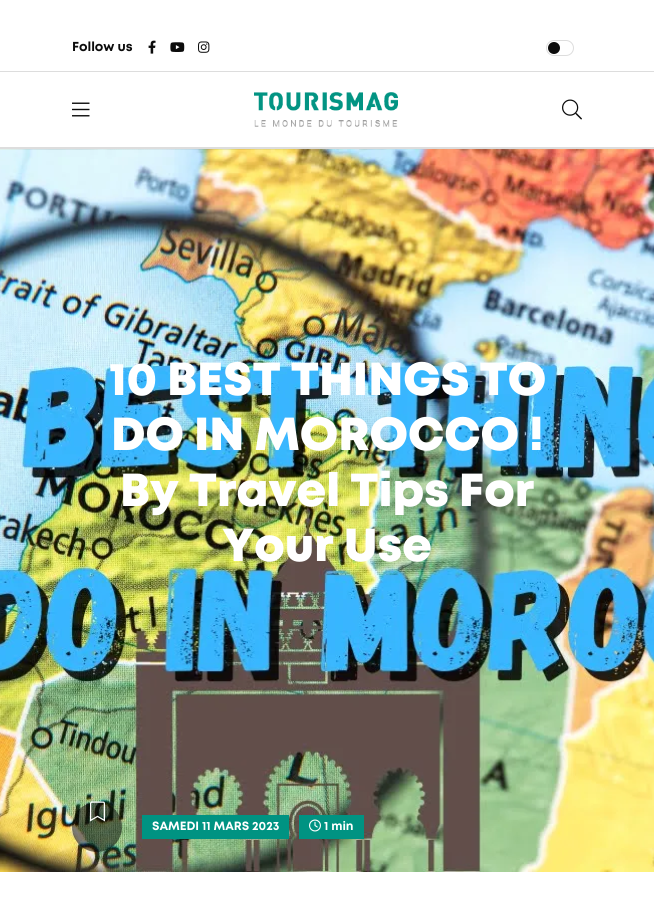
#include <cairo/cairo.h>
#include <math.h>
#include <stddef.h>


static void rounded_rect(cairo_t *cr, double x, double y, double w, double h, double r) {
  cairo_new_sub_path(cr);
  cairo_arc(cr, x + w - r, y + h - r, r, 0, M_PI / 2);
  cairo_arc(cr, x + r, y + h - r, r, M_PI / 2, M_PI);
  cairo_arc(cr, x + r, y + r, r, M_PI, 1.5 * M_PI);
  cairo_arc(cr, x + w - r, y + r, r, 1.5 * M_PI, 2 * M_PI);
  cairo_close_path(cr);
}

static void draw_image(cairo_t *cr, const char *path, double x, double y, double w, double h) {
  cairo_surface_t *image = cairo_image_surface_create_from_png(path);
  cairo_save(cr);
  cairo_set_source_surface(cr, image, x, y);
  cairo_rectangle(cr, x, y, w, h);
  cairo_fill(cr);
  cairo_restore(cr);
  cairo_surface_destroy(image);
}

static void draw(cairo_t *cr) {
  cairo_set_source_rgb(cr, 1, 1, 1);
  cairo_paint(cr);
  cairo_set_source_rgb(cr, 221 / 255.0, 221 / 255.0, 221 / 255.0);
  cairo_rectangle(cr, 0, 71, 654, 1);
  cairo_fill(cr);
  draw_image(cr, "images/1.png", 148, 40, 8, 14);
  draw_image(cr, "images/2.png", 170, 42, 15, 10);
  draw_image(cr, "images/3.png", 198, 41, 12, 12);
  rounded_rect(cr, 546.5, 40.5, 27, 15, 7.5);
  cairo_set_line_width(cr, 1);
  cairo_stroke(cr);
  cairo_set_source_rgb(cr, 12 / 255.0, 12 / 255.0, 12 / 255.0);
  cairo_arc(cr, 554, 48, 6, 0, 2 * M_PI);
  cairo_fill(cr);
  cairo_set_source_rgb(cr, 221 / 255.0, 221 / 255.0, 221 / 255.0);
  cairo_rectangle(cr, 0, 147, 654, 2);
  cairo_fill(cr);
  draw_image(cr, "images/4.png", 72, 102, 18, 15);
  draw_image(cr, "images/5.png", 254, 92, 144, 35);
  draw_image(cr, "images/6.png", 562, 99, 20, 21);
  draw_image(cr, "images/7.png", 0, 149, 654, 723);
  cairo_set_source_rgba(cr, 0, 0, 0, 0.5);
  cairo_arc(cr, 97, 827, 25, 0, 2 * M_PI);
  cairo_fill(cr);
  draw_image(cr, "images/8.png", 90, 801, 15, 21);
  cairo_set_source_rgb(cr, 0, 147 / 255.0, 130 / 255.0);
  cairo_rectangle(cr, 142, 815, 147, 24);
  cairo_fill(cr);
  cairo_rectangle(cr, 299, 815, 65, 24);
  cairo_fill(cr);
  draw_image(cr, "images/9.png", 309, 819, 12, 13);
  cairo_select_font_face(cr, "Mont", CAIRO_FONT_SLANT_NORMAL, CAIRO_FONT_WEIGHT_BOLD);
  cairo_set_font_size(cr, 13);
  cairo_set_source_rgb(cr, 12 / 255.0, 12 / 255.0, 12 / 255.0);
  cairo_move_to(cr, 72, 51);
  cairo_show_text(cr, "Follow us");
  cairo_select_font_face(cr, "Mont Black", CAIRO_FONT_SLANT_NORMAL, CAIRO_FONT_WEIGHT_NORMAL);
  cairo_set_font_size(cr, 46.25);
  cairo_set_source_rgb(cr, 1, 1, 1);
  cairo_move_to(cr, 109, 395);
  cairo_show_text(cr, "10 BEST THINGS TO");
  cairo_move_to(cr, 111, 450);
  cairo_show_text(cr, "DO IN MOROCCO !");
  cairo_move_to(cr, 120, 506);
  cairo_show_text(cr, "By Travel Tips For");
  cairo_move_to(cr, 222, 561);
  cairo_show_text(cr, "Your Use");
  cairo_select_font_face(cr, "Mont", CAIRO_FONT_SLANT_NORMAL, CAIRO_FONT_WEIGHT_BOLD);
  cairo_set_font_size(cr, 12);
  cairo_move_to(cr, 152, 830);
  cairo_show_text(cr, "SAMEDI 11 MARS 2023");
  cairo_move_to(cr, 324, 830);
  cairo_show_text(cr, "1 min");
}

int main(void) {
  cairo_surface_t *surface = cairo_image_surface_create(CAIRO_FORMAT_RGB24, 654, 904);
  cairo_t *cr = cairo_create(surface);
  cairo_font_options_t *options = cairo_font_options_create();
  cairo_font_options_set_hint_metrics(options, CAIRO_HINT_METRICS_OFF);
  cairo_font_options_set_hint_style(options, CAIRO_HINT_STYLE_NONE);
  cairo_set_font_options(cr, options);
  cairo_set_miter_limit(cr, 4);
  draw(cr);
  cairo_surface_write_to_png(surface, "out.png");
  cairo_font_options_destroy(options);
  cairo_destroy(cr);
  cairo_surface_destroy(surface);
  return 0;
}
